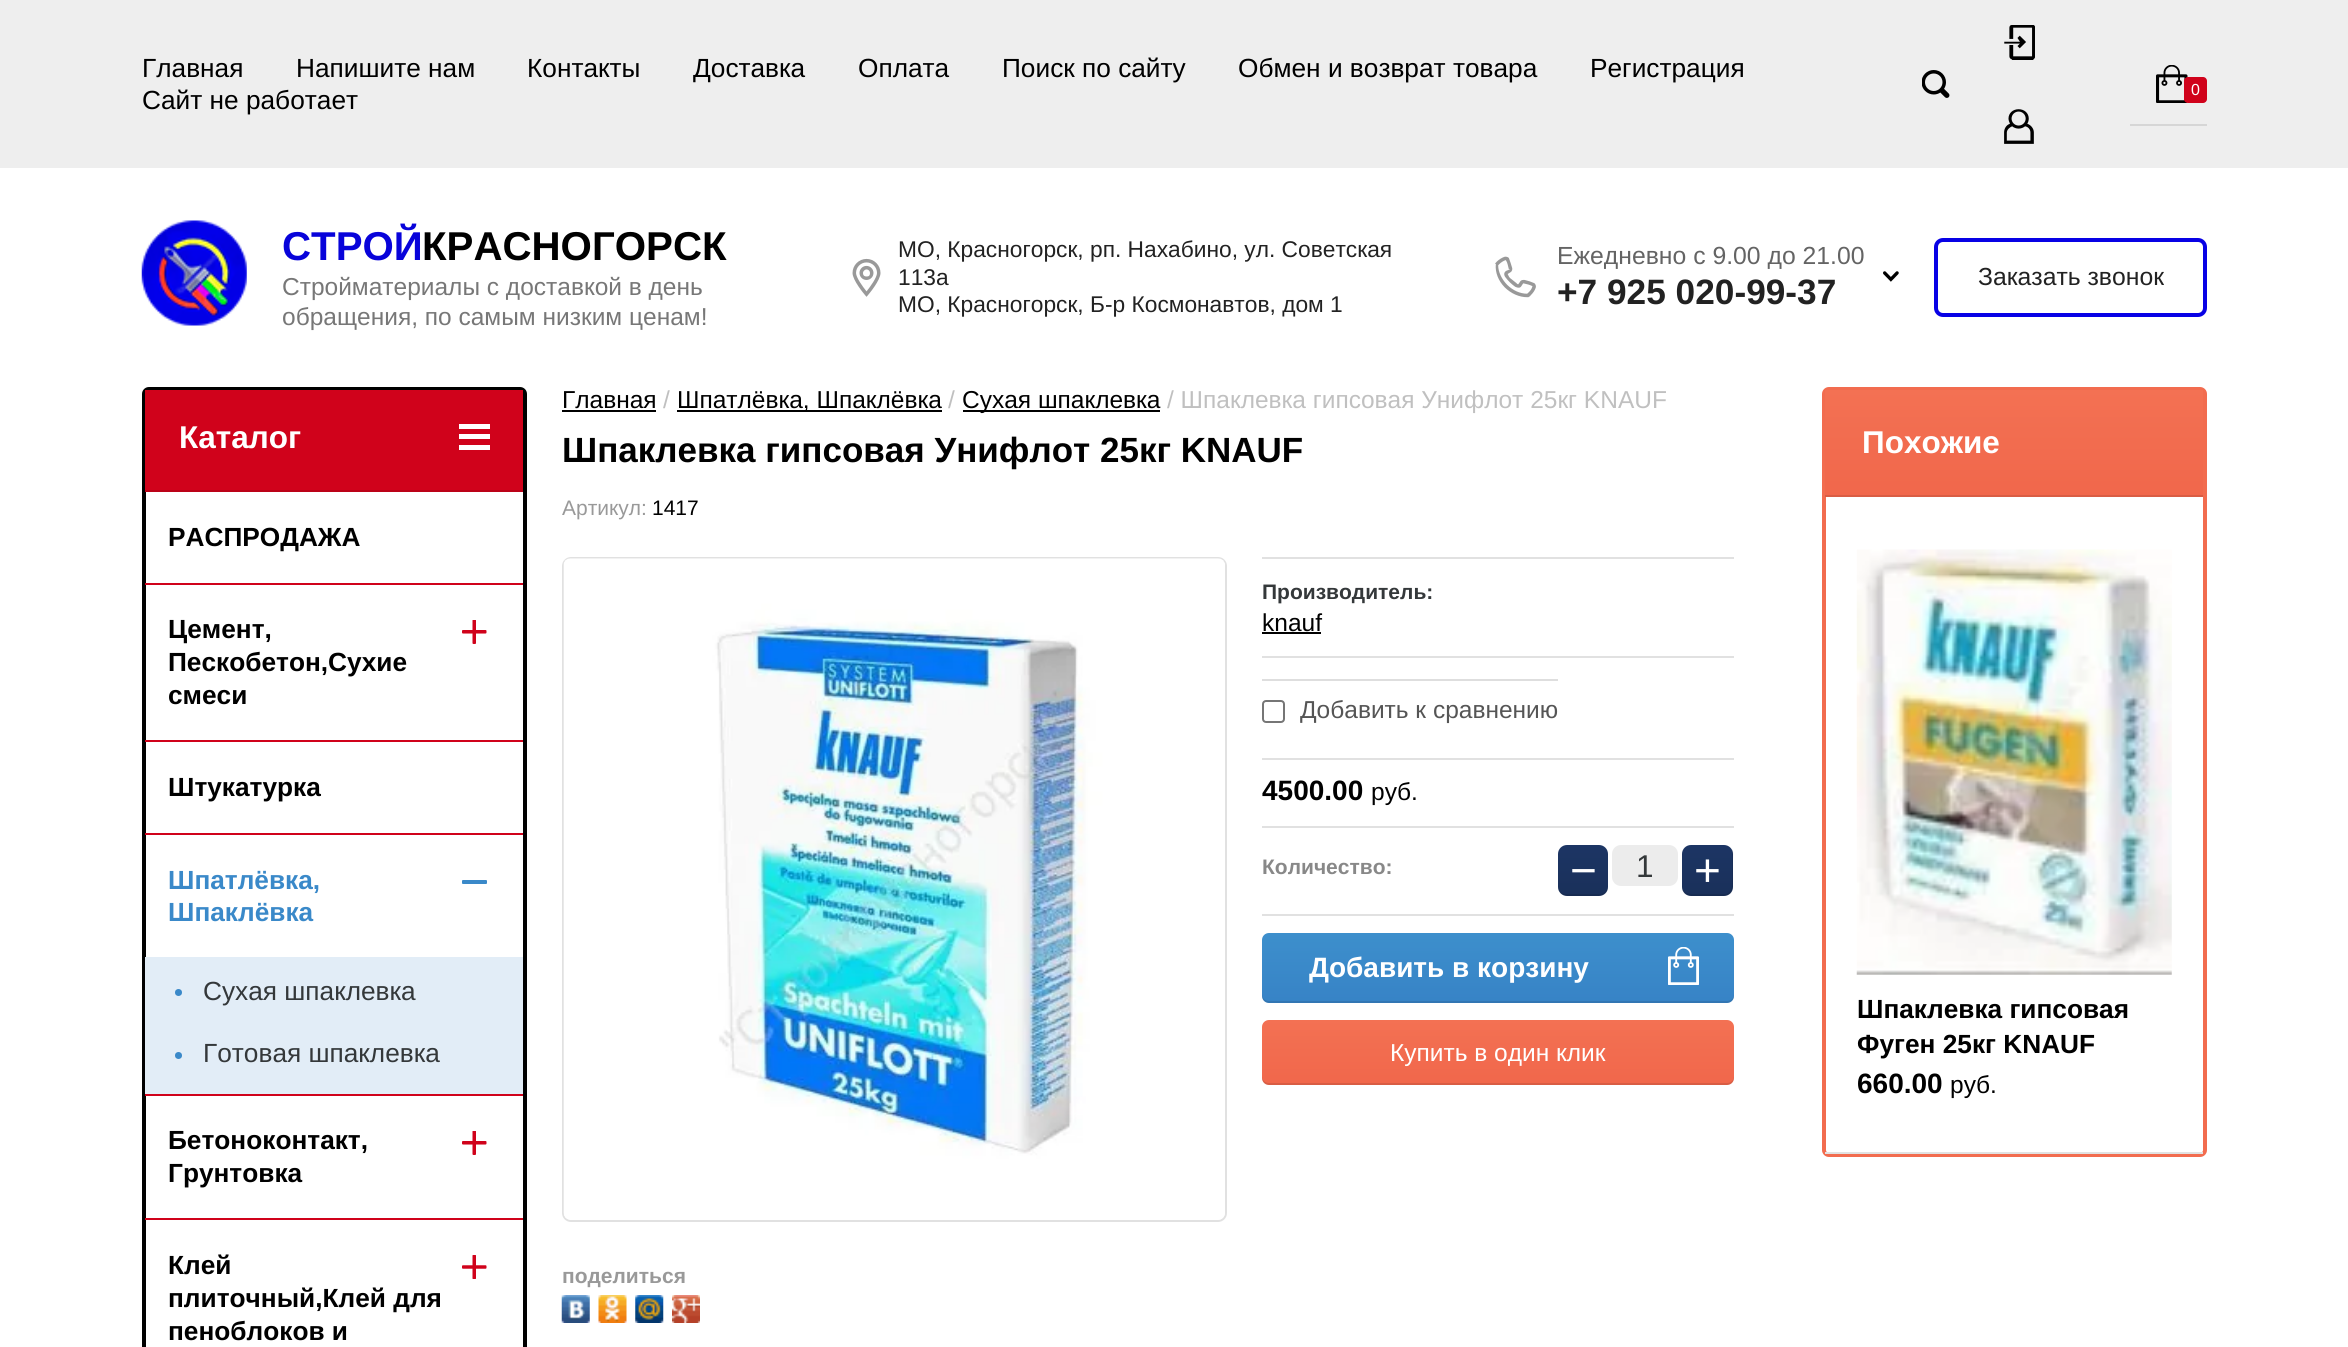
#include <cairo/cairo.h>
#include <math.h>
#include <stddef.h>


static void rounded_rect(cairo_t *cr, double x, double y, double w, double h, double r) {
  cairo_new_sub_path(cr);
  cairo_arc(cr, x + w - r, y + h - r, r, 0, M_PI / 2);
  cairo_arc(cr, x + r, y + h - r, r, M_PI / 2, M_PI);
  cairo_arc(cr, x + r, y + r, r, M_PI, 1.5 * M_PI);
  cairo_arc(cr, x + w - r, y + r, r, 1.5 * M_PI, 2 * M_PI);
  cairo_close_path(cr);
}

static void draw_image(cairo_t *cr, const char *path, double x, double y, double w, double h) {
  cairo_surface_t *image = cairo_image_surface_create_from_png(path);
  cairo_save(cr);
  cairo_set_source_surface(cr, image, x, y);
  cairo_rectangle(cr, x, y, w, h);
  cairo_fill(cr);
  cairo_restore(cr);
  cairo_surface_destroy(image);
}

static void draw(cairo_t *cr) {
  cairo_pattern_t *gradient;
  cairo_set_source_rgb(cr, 1, 1, 1);
  cairo_paint(cr);
  cairo_set_source_rgb(cr, 238 / 255.0, 238 / 255.0, 238 / 255.0);
  cairo_rectangle(cr, 0, 0, 2348, 168);
  cairo_fill(cr);
  draw_image(cr, "images/1.png", 1922, 70, 28, 28);
  draw_image(cr, "images/2.png", 2004, 25, 31, 35);
  draw_image(cr, "images/3.png", 2004, 109, 30, 35);
  cairo_set_source_rgb(cr, 214 / 255.0, 214 / 255.0, 214 / 255.0);
  cairo_rectangle(cr, 2130, 124, 77, 2);
  cairo_fill(cr);
  draw_image(cr, "images/4.png", 2156, 65, 32, 38);
  cairo_set_source_rgb(cr, 208 / 255.0, 2 / 255.0, 27 / 255.0);
  rounded_rect(cr, 2184, 77, 23, 26, 4);
  cairo_fill(cr);
  draw_image(cr, "images/5.png", 141, 220, 106, 106);
  draw_image(cr, "images/6.png", 852, 258, 29, 39);
  draw_image(cr, "images/7.png", 1495, 256, 41, 42);
  draw_image(cr, "images/8.png", 1883, 271, 16, 11);
  rounded_rect(cr, 1936, 240, 269, 75, 7);
  cairo_set_source_rgb(cr, 8 / 255.0, 1 / 255.0, 229 / 255.0);
  cairo_set_line_width(cr, 4);
  cairo_stroke(cr);
  rounded_rect(cr, 144, 389, 381, 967, 5);
  cairo_set_source_rgb(cr, 0, 0, 0);
  cairo_stroke(cr);
  cairo_set_source_rgb(cr, 208 / 255.0, 2 / 255.0, 27 / 255.0);
  cairo_rectangle(cr, 145, 390, 378, 100);
  cairo_fill(cr);
  cairo_set_source_rgb(cr, 187 / 255.0, 2 / 255.0, 24 / 255.0);
  cairo_rectangle(cr, 145, 490, 378, 2);
  cairo_fill(cr);
  cairo_set_source_rgb(cr, 1, 1, 1);
  cairo_rectangle(cr, 459, 424, 31, 5);
  cairo_fill(cr);
  cairo_rectangle(cr, 459, 434, 31, 5);
  cairo_fill(cr);
  cairo_rectangle(cr, 459, 445, 31, 5);
  cairo_fill(cr);
  cairo_set_source_rgb(cr, 208 / 255.0, 2 / 255.0, 27 / 255.0);
  cairo_rectangle(cr, 145, 583, 378, 2);
  cairo_fill(cr);
  draw_image(cr, "images/9.png", 462, 620, 25, 24);
  cairo_rectangle(cr, 145, 740, 378, 2);
  cairo_fill(cr);
  cairo_rectangle(cr, 145, 833, 378, 2);
  cairo_fill(cr);
  cairo_set_source_rgb(cr, 58 / 255.0, 137 / 255.0, 201 / 255.0);
  rounded_rect(cr, 462, 880, 25, 4, 1);
  cairo_fill(cr);
  cairo_set_source_rgb(cr, 226 / 255.0, 237 / 255.0, 247 / 255.0);
  cairo_rectangle(cr, 145, 957, 378, 137);
  cairo_fill(cr);
  cairo_set_source_rgb(cr, 58 / 255.0, 137 / 255.0, 201 / 255.0);
  cairo_arc(cr, 178.5, 992.5, 3.5, 0, 2 * M_PI);
  cairo_fill(cr);
  cairo_arc(cr, 178.5, 1055.5, 3.5, 0, 2 * M_PI);
  cairo_fill(cr);
  cairo_set_source_rgb(cr, 208 / 255.0, 2 / 255.0, 27 / 255.0);
  cairo_rectangle(cr, 145, 1094, 378, 2);
  cairo_fill(cr);
  draw_image(cr, "images/9.png", 462, 1131, 25, 24);
  cairo_rectangle(cr, 145, 1218, 378, 2);
  cairo_fill(cr);
  draw_image(cr, "images/10.png", 462, 1255, 25, 24);
  cairo_set_source_rgb(cr, 0, 0, 0);
  cairo_rectangle(cr, 562, 410, 94, 2);
  cairo_fill(cr);
  cairo_rectangle(cr, 677, 410, 265, 2);
  cairo_fill(cr);
  cairo_rectangle(cr, 963, 410, 197, 2);
  cairo_fill(cr);
  cairo_set_source_rgb(cr, 225 / 255.0, 225 / 255.0, 225 / 255.0);
  cairo_rectangle(cr, 1262, 557, 472, 2);
  cairo_fill(cr);
  cairo_set_source_rgb(cr, 0, 0, 0);
  cairo_rectangle(cr, 1262, 632, 59, 2);
  cairo_fill(cr);
  cairo_set_source_rgb(cr, 225 / 255.0, 225 / 255.0, 225 / 255.0);
  cairo_rectangle(cr, 1262, 656, 472, 2);
  cairo_fill(cr);
  cairo_set_source_rgb(cr, 222 / 255.0, 222 / 255.0, 222 / 255.0);
  cairo_rectangle(cr, 1262, 679, 296, 2);
  cairo_fill(cr);
  rounded_rect(cr, 1263, 701, 21, 21, 3);
  cairo_set_source_rgb(cr, 118 / 255.0, 118 / 255.0, 118 / 255.0);
  cairo_set_line_width(cr, 2);
  cairo_stroke(cr);
  cairo_set_source_rgb(cr, 225 / 255.0, 225 / 255.0, 225 / 255.0);
  cairo_rectangle(cr, 1262, 758, 472, 2);
  cairo_fill(cr);
  cairo_rectangle(cr, 1262, 826, 472, 2);
  cairo_fill(cr);
  cairo_rectangle(cr, 1262, 914, 472, 2);
  cairo_fill(cr);
  gradient = cairo_pattern_create_linear(1583, 896, 1583, 845);
  cairo_pattern_add_color_stop_rgba(gradient, 0, 26 / 255.0, 48 / 255.0, 90 / 255.0, 1);
  cairo_pattern_add_color_stop_rgba(gradient, 1, 28 / 255.0, 53 / 255.0, 100 / 255.0, 1);
  cairo_set_source(cr, gradient);
  cairo_pattern_destroy(gradient);
  rounded_rect(cr, 1558, 845, 50, 51, 9);
  cairo_fill(cr);
  cairo_set_source_rgba(cr, 0, 0, 0, 0.1);
  cairo_new_path(cr);
  cairo_move_to(cr, 1558, 886);
  cairo_curve_to(cr, 1558, 895, 1565, 896, 1572, 896);
  cairo_line_to(cr, 1594, 896);
  cairo_curve_to(cr, 1601, 896, 1608, 895, 1608, 886);
  cairo_curve_to(cr, 1608, 890, 1604, 894, 1600, 894);
  cairo_line_to(cr, 1566, 894);
  cairo_curve_to(cr, 1561, 894, 1558, 890, 1558, 886);
  cairo_close_path(cr);
  cairo_fill(cr);
  cairo_set_source_rgb(cr, 236 / 255.0, 236 / 255.0, 236 / 255.0);
  rounded_rect(cr, 1612, 845, 66, 41, 9);
  cairo_fill(cr);
  gradient = cairo_pattern_create_linear(1707, 896, 1707, 845);
  cairo_pattern_add_color_stop_rgba(gradient, 0, 26 / 255.0, 48 / 255.0, 90 / 255.0, 1);
  cairo_pattern_add_color_stop_rgba(gradient, 1, 28 / 255.0, 53 / 255.0, 100 / 255.0, 1);
  cairo_set_source(cr, gradient);
  cairo_pattern_destroy(gradient);
  rounded_rect(cr, 1682, 845, 51, 51, 9);
  cairo_fill(cr);
  cairo_set_source_rgba(cr, 0, 0, 0, 0.1);
  cairo_new_path(cr);
  cairo_move_to(cr, 1682, 886);
  cairo_curve_to(cr, 1682, 896, 1689, 896, 1696, 896);
  cairo_line_to(cr, 1708, 896);
  cairo_curve_to(cr, 1735, 896, 1733, 898, 1733, 870);
  cairo_line_to(cr, 1733, 860);
  cairo_curve_to(cr, 1733, 856, 1734, 852, 1732, 849);
  cairo_line_to(cr, 1732, 880);
  cairo_curve_to(cr, 1732, 886, 1732, 892, 1726, 894);
  cairo_line_to(cr, 1701, 894);
  cairo_curve_to(cr, 1695, 894, 1682, 896, 1682, 886);
  cairo_close_path(cr);
  cairo_fill(cr);
  gradient = cairo_pattern_create_linear(1498, 1003, 1498, 933);
  cairo_pattern_add_color_stop_rgba(gradient, 0, 55 / 255.0, 131 / 255.0, 198 / 255.0, 1);
  cairo_pattern_add_color_stop_rgba(gradient, 1, 61 / 255.0, 143 / 255.0, 204 / 255.0, 1);
  cairo_set_source(cr, gradient);
  cairo_pattern_destroy(gradient);
  rounded_rect(cr, 1262, 933, 472, 70, 7);
  cairo_fill(cr);
  cairo_set_source_rgba(cr, 0, 0, 0, 0.1);
  cairo_new_path(cr);
  cairo_move_to(cr, 1262, 994);
  cairo_line_to(cr, 1262, 996);
  cairo_curve_to(cr, 1262, 1000, 1265, 1003, 1269, 1003);
  cairo_line_to(cr, 1727, 1003);
  cairo_curve_to(cr, 1731, 1003, 1734, 1000, 1734, 996);
  cairo_line_to(cr, 1734, 994);
  cairo_curve_to(cr, 1734, 998, 1731, 1001, 1727, 1001);
  cairo_line_to(cr, 1269, 1001);
  cairo_curve_to(cr, 1265, 1001, 1262, 998, 1262, 994);
  cairo_close_path(cr);
  cairo_fill(cr);
  draw_image(cr, "images/11.png", 1668, 947, 31, 38);
  gradient = cairo_pattern_create_linear(1498, 1085, 1498, 1020);
  cairo_pattern_add_color_stop_rgba(gradient, 0, 241 / 255.0, 103 / 255.0, 75 / 255.0, 1);
  cairo_pattern_add_color_stop_rgba(gradient, 1, 243 / 255.0, 113 / 255.0, 83 / 255.0, 1);
  cairo_set_source(cr, gradient);
  cairo_pattern_destroy(gradient);
  rounded_rect(cr, 1262, 1020, 472, 65, 7);
  cairo_fill(cr);
  cairo_set_source_rgba(cr, 0, 0, 0, 0.1);
  cairo_new_path(cr);
  cairo_move_to(cr, 1262, 1076);
  cairo_line_to(cr, 1262, 1078);
  cairo_curve_to(cr, 1262, 1082, 1265, 1085, 1269, 1085);
  cairo_line_to(cr, 1727, 1085);
  cairo_curve_to(cr, 1731, 1085, 1734, 1082, 1734, 1078);
  cairo_line_to(cr, 1734, 1076);
  cairo_curve_to(cr, 1734, 1080, 1731, 1083, 1727, 1083);
  cairo_line_to(cr, 1269, 1083);
  cairo_curve_to(cr, 1265, 1083, 1262, 1080, 1262, 1076);
  cairo_close_path(cr);
  cairo_fill(cr);
  rounded_rect(cr, 563, 558, 663, 663, 8);
  cairo_set_source_rgb(cr, 225 / 255.0, 225 / 255.0, 225 / 255.0);
  cairo_stroke(cr);
  draw_image(cr, "images/12.png", 563, 558, 662, 662);
  draw_image(cr, "images/13.png", 561, 1295, 29, 28);
  draw_image(cr, "images/14.png", 598, 1295, 29, 28);
  draw_image(cr, "images/15.png", 635, 1295, 29, 28);
  draw_image(cr, "images/16.png", 672, 1295, 28, 28);
  rounded_rect(cr, 1824, 389, 381, 766, 5);
  cairo_set_source_rgb(cr, 242 / 255.0, 108 / 255.0, 79 / 255.0);
  cairo_set_line_width(cr, 4);
  cairo_stroke(cr);
  gradient = cairo_pattern_create_linear(2014, 497, 2014, 390);
  cairo_pattern_add_color_stop_rgba(gradient, 0, 241 / 255.0, 103 / 255.0, 75 / 255.0, 1);
  cairo_pattern_add_color_stop_rgba(gradient, 1, 243 / 255.0, 113 / 255.0, 83 / 255.0, 1);
  cairo_set_source(cr, gradient);
  cairo_pattern_destroy(gradient);
  cairo_rectangle(cr, 1825, 390, 378, 105);
  cairo_fill(cr);
  cairo_set_source_rgb(cr, 217 / 255.0, 93 / 255.0, 68 / 255.0);
  cairo_rectangle(cr, 1825, 495, 378, 2);
  cairo_fill(cr);
  cairo_set_source_rgb(cr, 225 / 255.0, 225 / 255.0, 225 / 255.0);
  cairo_rectangle(cr, 1825, 1152, 378, 2);
  cairo_fill(cr);
  draw_image(cr, "images/17.png", 1856, 549, 316, 426);
  cairo_select_font_face(cr, "Liberation Sans", CAIRO_FONT_SLANT_NORMAL, CAIRO_FONT_WEIGHT_NORMAL);
  cairo_set_font_size(cr, 26.25);
  cairo_set_source_rgb(cr, 0, 0, 0);
  cairo_move_to(cr, 142, 77);
  cairo_show_text(cr, "Главная");
  cairo_move_to(cr, 296, 77);
  cairo_show_text(cr, "Напишите нам");
  cairo_move_to(cr, 527, 77);
  cairo_show_text(cr, "Контакты");
  cairo_move_to(cr, 693, 77);
  cairo_show_text(cr, "Доставка");
  cairo_move_to(cr, 858, 77);
  cairo_show_text(cr, "Оплата");
  cairo_move_to(cr, 1002, 77);
  cairo_show_text(cr, "Поиск по сайту");
  cairo_move_to(cr, 1238, 77);
  cairo_show_text(cr, "Обмен и возврат товара");
  cairo_move_to(cr, 1590, 77);
  cairo_show_text(cr, "Регистрация");
  cairo_move_to(cr, 142, 109);
  cairo_show_text(cr, "Сайт не работает");
  cairo_set_font_size(cr, 16);
  cairo_set_source_rgb(cr, 1, 1, 1);
  cairo_move_to(cr, 2191, 95);
  cairo_show_text(cr, "0");
  cairo_select_font_face(cr, "Liberation Sans", CAIRO_FONT_SLANT_NORMAL, CAIRO_FONT_WEIGHT_BOLD);
  cairo_set_font_size(cr, 40.25);
  cairo_set_source_rgb(cr, 8 / 255.0, 3 / 255.0, 218 / 255.0);
  cairo_move_to(cr, 282, 260);
  cairo_show_text(cr, "СТРОЙ");
  cairo_set_source_rgb(cr, 0, 0, 0);
  cairo_move_to(cr, 422, 260);
  cairo_show_text(cr, "КРАСНОГОРСК");
  cairo_select_font_face(cr, "Liberation Sans", CAIRO_FONT_SLANT_NORMAL, CAIRO_FONT_WEIGHT_NORMAL);
  cairo_set_font_size(cr, 24.5);
  cairo_set_source_rgb(cr, 119 / 255.0, 119 / 255.0, 119 / 255.0);
  cairo_move_to(cr, 282, 295);
  cairo_show_text(cr, "Стройматериалы с доставкой в день");
  cairo_move_to(cr, 282, 325);
  cairo_show_text(cr, "обращения, по самым низким ценам!");
  cairo_set_font_size(cr, 22.75);
  cairo_set_source_rgb(cr, 34 / 255.0, 34 / 255.0, 34 / 255.0);
  cairo_move_to(cr, 898, 257);
  cairo_show_text(cr, "МО, Красногорск, рп. Нахабино, ул. Советская");
  cairo_move_to(cr, 898, 285);
  cairo_show_text(cr, "113а");
  cairo_move_to(cr, 898, 312);
  cairo_show_text(cr, "МО, Красногорск, Б-р Космонавтов, дом 1");
  cairo_set_font_size(cr, 24.75);
  cairo_set_source_rgb(cr, 100 / 255.0, 100 / 255.0, 100 / 255.0);
  cairo_move_to(cr, 1557, 264);
  cairo_show_text(cr, "Ежедневно с 9.00 до 21.00");
  cairo_select_font_face(cr, "Liberation Sans", CAIRO_FONT_SLANT_NORMAL, CAIRO_FONT_WEIGHT_BOLD);
  cairo_set_font_size(cr, 35.25);
  cairo_set_source_rgb(cr, 34 / 255.0, 34 / 255.0, 34 / 255.0);
  cairo_move_to(cr, 1557, 304);
  cairo_show_text(cr, "+7 925 020-99-37");
  cairo_select_font_face(cr, "Liberation Sans", CAIRO_FONT_SLANT_NORMAL, CAIRO_FONT_WEIGHT_NORMAL);
  cairo_set_font_size(cr, 24.75);
  cairo_move_to(cr, 1978, 285);
  cairo_show_text(cr, "Заказать звонок");
  cairo_select_font_face(cr, "Liberation Sans", CAIRO_FONT_SLANT_NORMAL, CAIRO_FONT_WEIGHT_BOLD);
  cairo_set_font_size(cr, 31.5);
  cairo_set_source_rgb(cr, 1, 1, 1);
  cairo_move_to(cr, 179, 448);
  cairo_show_text(cr, "Каталог");
  cairo_set_font_size(cr, 26.25);
  cairo_set_source_rgb(cr, 0, 0, 0);
  cairo_move_to(cr, 168, 546);
  cairo_show_text(cr, "РАСПРОДАЖА");
  cairo_move_to(cr, 168, 638);
  cairo_show_text(cr, "Цемент,");
  cairo_move_to(cr, 168, 671);
  cairo_show_text(cr, "Пескобетон,Сухие");
  cairo_move_to(cr, 168, 704);
  cairo_show_text(cr, "смеси");
  cairo_move_to(cr, 168, 796);
  cairo_show_text(cr, "Штукатурка");
  cairo_set_source_rgb(cr, 58 / 255.0, 137 / 255.0, 201 / 255.0);
  cairo_move_to(cr, 168, 889);
  cairo_show_text(cr, "Шпатлёвка,");
  cairo_move_to(cr, 168, 921);
  cairo_show_text(cr, "Шпаклёвка");
  cairo_select_font_face(cr, "Liberation Sans", CAIRO_FONT_SLANT_NORMAL, CAIRO_FONT_WEIGHT_NORMAL);
  cairo_set_source_rgb(cr, 52 / 255.0, 56 / 255.0, 58 / 255.0);
  cairo_move_to(cr, 203, 1000);
  cairo_show_text(cr, "Сухая шпаклевка");
  cairo_move_to(cr, 203, 1062);
  cairo_show_text(cr, "Готовая шпаклевка");
  cairo_select_font_face(cr, "Liberation Sans", CAIRO_FONT_SLANT_NORMAL, CAIRO_FONT_WEIGHT_BOLD);
  cairo_set_source_rgb(cr, 0, 0, 0);
  cairo_move_to(cr, 168, 1149);
  cairo_show_text(cr, "Бетоноконтакт,");
  cairo_move_to(cr, 168, 1182);
  cairo_show_text(cr, "Грунтовка");
  cairo_move_to(cr, 168, 1274);
  cairo_show_text(cr, "Клей");
  cairo_move_to(cr, 168, 1307);
  cairo_show_text(cr, "плиточный,Клей для");
  cairo_move_to(cr, 168, 1340);
  cairo_show_text(cr, "пеноблоков и");
  cairo_select_font_face(cr, "Liberation Sans", CAIRO_FONT_SLANT_NORMAL, CAIRO_FONT_WEIGHT_NORMAL);
  cairo_set_font_size(cr, 24.5);
  cairo_move_to(cr, 562, 408);
  cairo_show_text(cr, "Главная");
  cairo_set_source_rgb(cr, 192 / 255.0, 192 / 255.0, 192 / 255.0);
  cairo_move_to(cr, 663, 408);
  cairo_show_text(cr, "/");
  cairo_set_source_rgb(cr, 0, 0, 0);
  cairo_move_to(cr, 677, 408);
  cairo_show_text(cr, "Шпатлёвка, Шпаклёвка");
  cairo_set_source_rgb(cr, 192 / 255.0, 192 / 255.0, 192 / 255.0);
  cairo_move_to(cr, 948, 408);
  cairo_show_text(cr, "/");
  cairo_set_source_rgb(cr, 0, 0, 0);
  cairo_move_to(cr, 962, 408);
  cairo_show_text(cr, "Сухая шпаклевка");
  cairo_set_source_rgb(cr, 192 / 255.0, 192 / 255.0, 192 / 255.0);
  cairo_move_to(cr, 1167, 408);
  cairo_show_text(cr, "/ Шпаклевка гипсовая Унифлот 25кг KNAUF");
  cairo_select_font_face(cr, "Liberation Sans", CAIRO_FONT_SLANT_NORMAL, CAIRO_FONT_WEIGHT_BOLD);
  cairo_set_font_size(cr, 35);
  cairo_set_source_rgb(cr, 0, 0, 0);
  cairo_move_to(cr, 562, 462);
  cairo_show_text(cr, "Шпаклевка гипсовая Унифлот 25кг KNAUF");
  cairo_select_font_face(cr, "Liberation Sans", CAIRO_FONT_SLANT_NORMAL, CAIRO_FONT_WEIGHT_NORMAL);
  cairo_set_font_size(cr, 21);
  cairo_set_source_rgb(cr, 153 / 255.0, 153 / 255.0, 153 / 255.0);
  cairo_move_to(cr, 562, 515);
  cairo_show_text(cr, "Артикул:");
  cairo_set_source_rgb(cr, 0, 0, 0);
  cairo_move_to(cr, 652, 515);
  cairo_show_text(cr, "1417");
  cairo_select_font_face(cr, "Liberation Sans", CAIRO_FONT_SLANT_NORMAL, CAIRO_FONT_WEIGHT_BOLD);
  cairo_set_source_rgb(cr, 52 / 255.0, 56 / 255.0, 58 / 255.0);
  cairo_move_to(cr, 1262, 599);
  cairo_show_text(cr, "Производитель:");
  cairo_select_font_face(cr, "Liberation Sans", CAIRO_FONT_SLANT_NORMAL, CAIRO_FONT_WEIGHT_NORMAL);
  cairo_set_font_size(cr, 24.5);
  cairo_set_source_rgb(cr, 0, 0, 0);
  cairo_move_to(cr, 1262, 631);
  cairo_show_text(cr, "knauf");
  cairo_set_source_rgb(cr, 85 / 255.0, 85 / 255.0, 85 / 255.0);
  cairo_move_to(cr, 1300, 718);
  cairo_show_text(cr, "Добавить к сравнению");
  cairo_select_font_face(cr, "Liberation Sans", CAIRO_FONT_SLANT_NORMAL, CAIRO_FONT_WEIGHT_BOLD);
  cairo_set_font_size(cr, 28);
  cairo_set_source_rgb(cr, 0, 0, 0);
  cairo_move_to(cr, 1262, 800);
  cairo_show_text(cr, "4500.00");
  cairo_select_font_face(cr, "Liberation Sans", CAIRO_FONT_SLANT_NORMAL, CAIRO_FONT_WEIGHT_NORMAL);
  cairo_set_font_size(cr, 24.5);
  cairo_move_to(cr, 1371, 800);
  cairo_show_text(cr, "руб.");
  cairo_select_font_face(cr, "Liberation Sans", CAIRO_FONT_SLANT_NORMAL, CAIRO_FONT_WEIGHT_BOLD);
  cairo_set_font_size(cr, 21);
  cairo_set_source_rgb(cr, 136 / 255.0, 136 / 255.0, 136 / 255.0);
  cairo_move_to(cr, 1262, 874);
  cairo_show_text(cr, "Количество:");
  cairo_select_font_face(cr, "Liberation Sans", CAIRO_FONT_SLANT_NORMAL, CAIRO_FONT_WEIGHT_NORMAL);
  cairo_set_font_size(cr, 46);
  cairo_set_source_rgb(cr, 1, 1, 1);
  cairo_move_to(cr, 1570, 886);
  cairo_show_text(cr, "−");
  cairo_set_font_size(cr, 31.5);
  cairo_set_source_rgb(cr, 52 / 255.0, 56 / 255.0, 58 / 255.0);
  cairo_move_to(cr, 1636, 877);
  cairo_show_text(cr, "1");
  cairo_set_font_size(cr, 46);
  cairo_set_source_rgb(cr, 1, 1, 1);
  cairo_move_to(cr, 1694, 886);
  cairo_show_text(cr, "+");
  cairo_select_font_face(cr, "Liberation Sans", CAIRO_FONT_SLANT_NORMAL, CAIRO_FONT_WEIGHT_BOLD);
  cairo_set_font_size(cr, 28);
  cairo_move_to(cr, 1309, 977);
  cairo_show_text(cr, "Добавить в корзину");
  cairo_select_font_face(cr, "Liberation Sans", CAIRO_FONT_SLANT_NORMAL, CAIRO_FONT_WEIGHT_NORMAL);
  cairo_set_font_size(cr, 24.5);
  cairo_move_to(cr, 1390, 1061);
  cairo_show_text(cr, "Купить в один клик");
  cairo_select_font_face(cr, "Liberation Sans", CAIRO_FONT_SLANT_NORMAL, CAIRO_FONT_WEIGHT_BOLD);
  cairo_set_font_size(cr, 21);
  cairo_set_source_rgb(cr, 153 / 255.0, 153 / 255.0, 153 / 255.0);
  cairo_move_to(cr, 562, 1283);
  cairo_show_text(cr, "поделиться");
  cairo_set_font_size(cr, 31.5);
  cairo_set_source_rgb(cr, 1, 1, 1);
  cairo_move_to(cr, 1862, 453);
  cairo_show_text(cr, "Похожие");
  cairo_set_font_size(cr, 26.25);
  cairo_set_source_rgb(cr, 0, 0, 0);
  cairo_move_to(cr, 1857, 1018);
  cairo_show_text(cr, "Шпаклевка гипсовая");
  cairo_move_to(cr, 1857, 1053);
  cairo_show_text(cr, "Фуген 25кг KNAUF");
  cairo_set_font_size(cr, 28);
  cairo_move_to(cr, 1857, 1093);
  cairo_show_text(cr, "660.00");
  cairo_select_font_face(cr, "Liberation Sans", CAIRO_FONT_SLANT_NORMAL, CAIRO_FONT_WEIGHT_NORMAL);
  cairo_set_font_size(cr, 24.5);
  cairo_move_to(cr, 1950, 1093);
  cairo_show_text(cr, "руб.");
}

int main(void) {
  cairo_surface_t *surface = cairo_image_surface_create(CAIRO_FORMAT_RGB24, 2348, 1347);
  cairo_t *cr = cairo_create(surface);
  cairo_font_options_t *options = cairo_font_options_create();
  cairo_font_options_set_hint_metrics(options, CAIRO_HINT_METRICS_OFF);
  cairo_font_options_set_hint_style(options, CAIRO_HINT_STYLE_NONE);
  cairo_set_font_options(cr, options);
  cairo_set_miter_limit(cr, 4);
  draw(cr);
  cairo_surface_write_to_png(surface, "out.png");
  cairo_font_options_destroy(options);
  cairo_destroy(cr);
  cairo_surface_destroy(surface);
  return 0;
}
